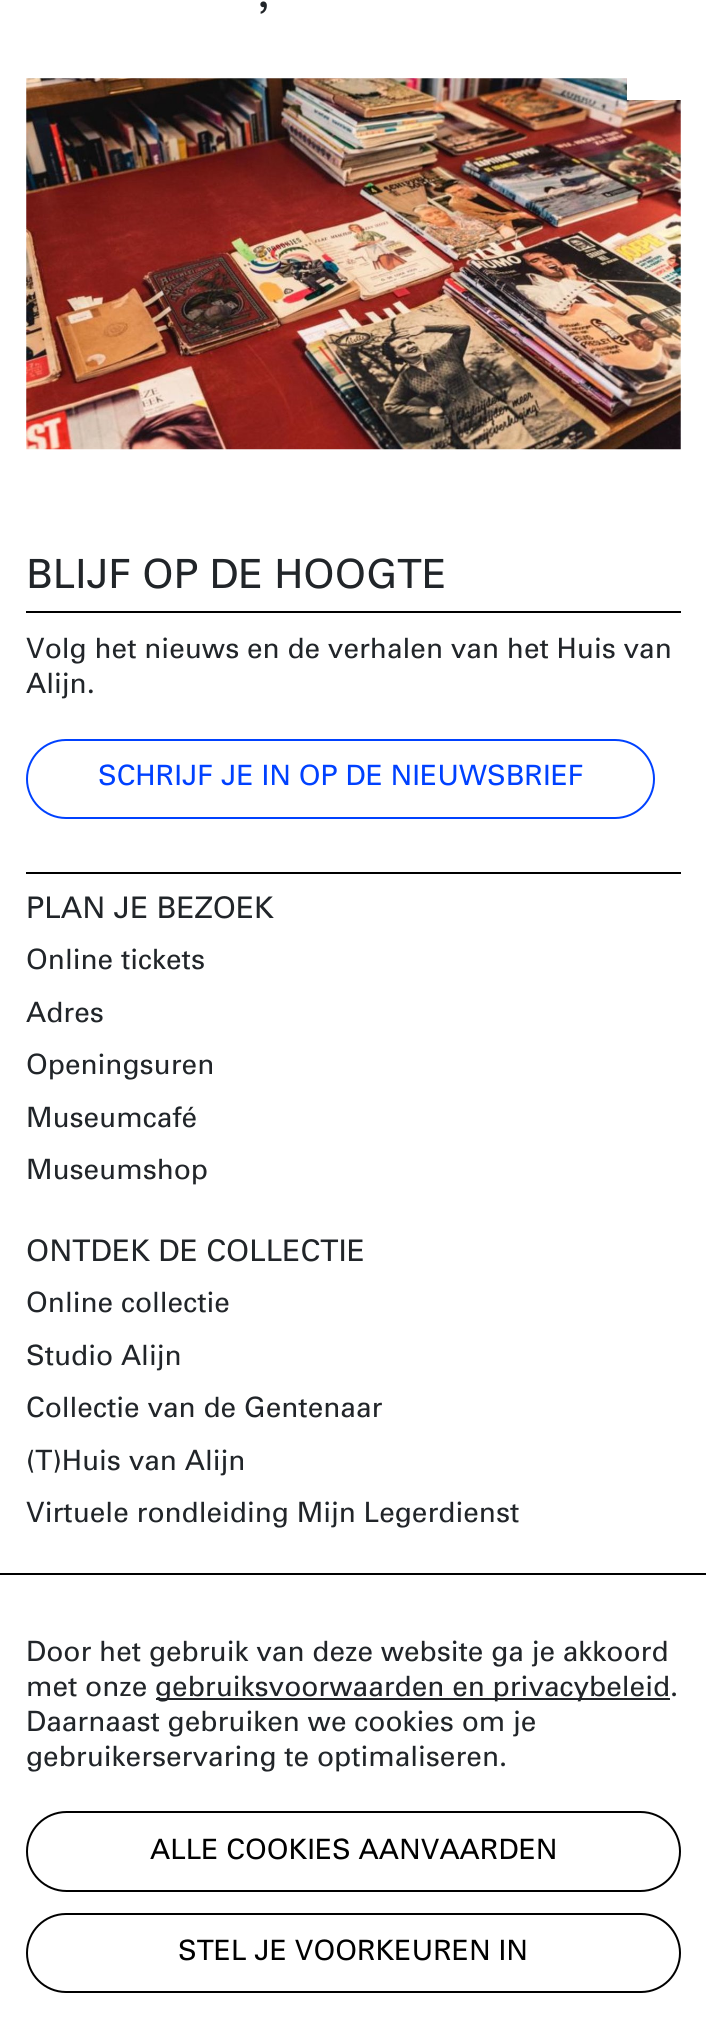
#include <cairo/cairo.h>
#include <math.h>
#include <stddef.h>


static void rounded_rect(cairo_t *cr, double x, double y, double w, double h, double r) {
  cairo_new_sub_path(cr);
  cairo_arc(cr, x + w - r, y + h - r, r, 0, M_PI / 2);
  cairo_arc(cr, x + r, y + h - r, r, M_PI / 2, M_PI);
  cairo_arc(cr, x + r, y + r, r, M_PI, 1.5 * M_PI);
  cairo_arc(cr, x + w - r, y + r, r, 1.5 * M_PI, 2 * M_PI);
  cairo_close_path(cr);
}

static void draw_image(cairo_t *cr, const char *path, double x, double y, double w, double h) {
  cairo_surface_t *image = cairo_image_surface_create_from_png(path);
  cairo_save(cr);
  cairo_set_source_surface(cr, image, x, y);
  cairo_rectangle(cr, x, y, w, h);
  cairo_fill(cr);
  cairo_restore(cr);
  cairo_surface_destroy(image);
}

static void draw(cairo_t *cr) {
  cairo_set_source_rgb(cr, 1, 1, 1);
  cairo_paint(cr);
  draw_image(cr, "images/1.png", 26, 78, 655, 372);
  cairo_set_source_rgb(cr, 0, 0, 0);
  cairo_rectangle(cr, 0, 1573, 706, 2);
  cairo_fill(cr);
  cairo_set_source_rgb(cr, 33 / 255.0, 37 / 255.0, 41 / 255.0);
  cairo_rectangle(cr, 156, 1698, 514, 2);
  cairo_fill(cr);
  rounded_rect(cr, 27, 1812, 653, 79, 39.5);
  cairo_set_source_rgb(cr, 0, 0, 0);
  cairo_stroke(cr);
  rounded_rect(cr, 27, 1914, 653, 78, 39);
  cairo_stroke(cr);
  cairo_set_source_rgb(cr, 1, 1, 1);
  cairo_rectangle(cr, 627, 78, 54, 22);
  cairo_fill(cr);
  cairo_set_source_rgb(cr, 0, 0, 0);
  cairo_rectangle(cr, 26, 611, 655, 2);
  cairo_fill(cr);
  rounded_rect(cr, 27, 740, 627, 78, 39);
  cairo_set_source_rgb(cr, 0, 65 / 255.0, 1);
  cairo_stroke(cr);
  cairo_set_source_rgb(cr, 0, 0, 0);
  cairo_rectangle(cr, 26, 872, 655, 2);
  cairo_fill(cr);
  cairo_select_font_face(cr, "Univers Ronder", CAIRO_FONT_SLANT_NORMAL, CAIRO_FONT_WEIGHT_NORMAL);
  cairo_set_font_size(cr, 44);
  cairo_set_source_rgb(cr, 33 / 255.0, 37 / 255.0, 41 / 255.0);
  cairo_move_to(cr, 257, 7);
  cairo_show_text(cr, ",");
  cairo_set_font_size(cr, 28);
  cairo_move_to(cr, 26, 1661);
  cairo_show_text(cr, "Door het gebruik van deze website ga je akkoord");
  cairo_move_to(cr, 26, 1696);
  cairo_show_text(cr, "met onze");
  cairo_move_to(cr, 155, 1696);
  cairo_show_text(cr, "gebruiksvoorwaarden en privacybeleid.");
  cairo_move_to(cr, 26, 1731);
  cairo_show_text(cr, "Daarnaast gebruiken we cookies om je");
  cairo_move_to(cr, 26, 1766);
  cairo_show_text(cr, "gebruikerservaring te optimaliseren.");
  cairo_set_source_rgb(cr, 0, 0, 0);
  cairo_move_to(cr, 150, 1859);
  cairo_show_text(cr, "ALLE COOKIES AANVAARDEN");
  cairo_move_to(cr, 178, 1960);
  cairo_show_text(cr, "STEL JE VOORKEUREN IN");
  cairo_set_font_size(cr, 40.25);
  cairo_set_source_rgb(cr, 33 / 255.0, 37 / 255.0, 41 / 255.0);
  cairo_move_to(cr, 26, 588);
  cairo_show_text(cr, "BLIJF OP DE HOOGTE");
  cairo_set_font_size(cr, 28);
  cairo_move_to(cr, 26, 658);
  cairo_show_text(cr, "Volg het nieuws en de verhalen van het Huis van");
  cairo_move_to(cr, 26, 693);
  cairo_show_text(cr, "Alijn.");
  cairo_set_source_rgb(cr, 0, 65 / 255.0, 1);
  cairo_move_to(cr, 98, 785);
  cairo_show_text(cr, "SCHRIJF JE IN OP DE NIEUWSBRIEF");
  cairo_set_font_size(cr, 29.75);
  cairo_set_source_rgb(cr, 33 / 255.0, 37 / 255.0, 41 / 255.0);
  cairo_move_to(cr, 26, 918);
  cairo_show_text(cr, "PLAN JE BEZOEK");
  cairo_set_font_size(cr, 28);
  cairo_move_to(cr, 26, 969);
  cairo_show_text(cr, "Online tickets");
  cairo_move_to(cr, 26, 1022);
  cairo_show_text(cr, "Adres");
  cairo_move_to(cr, 26, 1074);
  cairo_show_text(cr, "Openingsuren");
  cairo_move_to(cr, 26, 1127);
  cairo_show_text(cr, "Museumcafé");
  cairo_move_to(cr, 26, 1179);
  cairo_show_text(cr, "Museumshop");
  cairo_set_font_size(cr, 29.75);
  cairo_move_to(cr, 26, 1261);
  cairo_show_text(cr, "ONTDEK DE COLLECTIE");
  cairo_set_font_size(cr, 28);
  cairo_move_to(cr, 26, 1312);
  cairo_show_text(cr, "Online collectie");
  cairo_move_to(cr, 26, 1365);
  cairo_show_text(cr, "Studio Alijn");
  cairo_move_to(cr, 26, 1417);
  cairo_show_text(cr, "Collectie van de Gentenaar");
  cairo_move_to(cr, 26, 1470);
  cairo_show_text(cr, "(T)Huis van Alijn");
  cairo_move_to(cr, 26, 1522);
  cairo_show_text(cr, "Virtuele rondleiding Mijn Legerdienst");
}

int main(void) {
  cairo_surface_t *surface = cairo_image_surface_create(CAIRO_FORMAT_RGB24, 706, 2019);
  cairo_t *cr = cairo_create(surface);
  cairo_font_options_t *options = cairo_font_options_create();
  cairo_font_options_set_hint_metrics(options, CAIRO_HINT_METRICS_OFF);
  cairo_font_options_set_hint_style(options, CAIRO_HINT_STYLE_NONE);
  cairo_set_font_options(cr, options);
  cairo_set_miter_limit(cr, 4);
  draw(cr);
  cairo_surface_write_to_png(surface, "out.png");
  cairo_font_options_destroy(options);
  cairo_destroy(cr);
  cairo_surface_destroy(surface);
  return 0;
}
